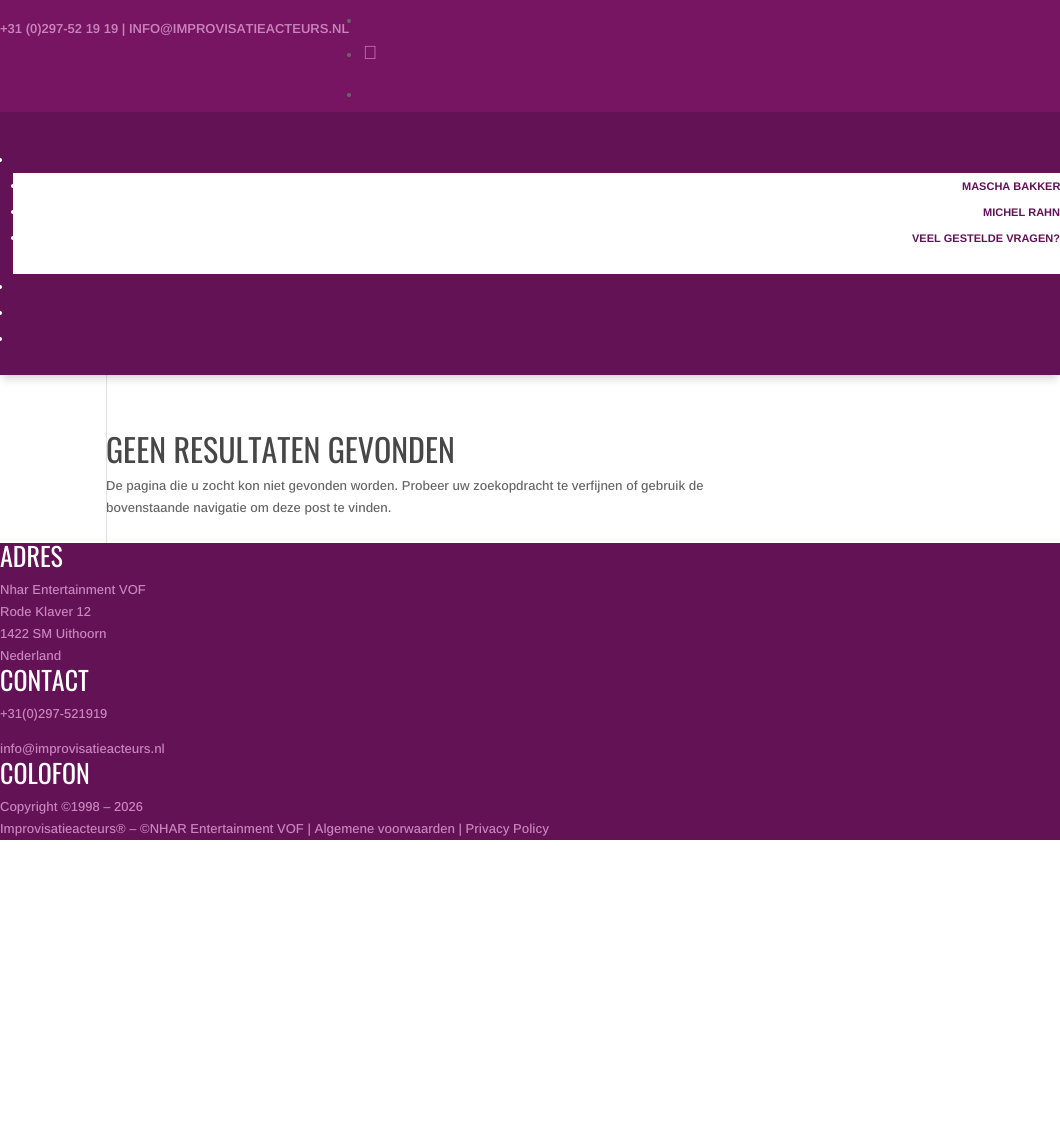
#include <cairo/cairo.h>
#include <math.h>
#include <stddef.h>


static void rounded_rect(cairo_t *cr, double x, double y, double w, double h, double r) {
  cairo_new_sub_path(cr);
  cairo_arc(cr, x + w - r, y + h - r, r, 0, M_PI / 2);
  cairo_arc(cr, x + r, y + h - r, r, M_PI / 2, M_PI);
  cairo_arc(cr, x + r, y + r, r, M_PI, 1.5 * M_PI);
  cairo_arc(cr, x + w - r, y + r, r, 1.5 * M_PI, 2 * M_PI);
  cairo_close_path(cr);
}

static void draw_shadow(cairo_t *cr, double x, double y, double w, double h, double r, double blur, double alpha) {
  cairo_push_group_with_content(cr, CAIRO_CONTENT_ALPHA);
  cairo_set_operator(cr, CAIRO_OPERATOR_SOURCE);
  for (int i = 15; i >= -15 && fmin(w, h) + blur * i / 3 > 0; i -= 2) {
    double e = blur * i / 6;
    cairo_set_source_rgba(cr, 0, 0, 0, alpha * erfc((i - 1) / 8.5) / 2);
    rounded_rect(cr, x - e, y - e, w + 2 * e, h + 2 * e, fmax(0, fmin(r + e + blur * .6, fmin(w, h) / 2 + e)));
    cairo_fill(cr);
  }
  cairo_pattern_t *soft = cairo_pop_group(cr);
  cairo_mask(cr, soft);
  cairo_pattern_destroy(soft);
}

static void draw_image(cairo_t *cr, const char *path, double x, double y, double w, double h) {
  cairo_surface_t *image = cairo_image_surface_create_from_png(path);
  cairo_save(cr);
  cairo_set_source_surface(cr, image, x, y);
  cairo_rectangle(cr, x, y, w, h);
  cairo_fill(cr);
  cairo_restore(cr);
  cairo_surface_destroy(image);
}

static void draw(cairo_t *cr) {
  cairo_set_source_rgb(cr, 1, 1, 1);
  cairo_paint(cr);
  cairo_set_source_rgb(cr, 120 / 255.0, 21 / 255.0, 98 / 255.0);
  cairo_rectangle(cr, 0, 0, 1060, 112);
  cairo_fill(cr);
  cairo_set_source_rgb(cr, 102 / 255.0, 102 / 255.0, 102 / 255.0);
  cairo_arc(cr, 349, 21, 2, 0, 2 * M_PI);
  cairo_fill(cr);
  cairo_arc(cr, 349, 55, 2, 0, 2 * M_PI);
  cairo_fill(cr);
  draw_image(cr, "images/1.png", 364, 45, 12, 14);
  cairo_arc(cr, 349, 95, 2, 0, 2 * M_PI);
  cairo_fill(cr);
  cairo_set_source_rgb(cr, 99 / 255.0, 18 / 255.0, 85 / 255.0);
  cairo_rectangle(cr, 0, 543, 1060, 297);
  cairo_fill(cr);
  cairo_select_font_face(cr, "Arimo SemiBold", CAIRO_FONT_SLANT_NORMAL, CAIRO_FONT_WEIGHT_NORMAL);
  cairo_set_font_size(cr, 13);
  cairo_set_source_rgb(cr, 201 / 255.0, 132 / 255.0, 190 / 255.0);
  cairo_move_to(cr, 0, 33);
  cairo_show_text(cr, "+31 (0)297-52 19 19 | INFO@IMPROVISATIEACTEURS.NL");
  cairo_select_font_face(cr, "Oswald", CAIRO_FONT_SLANT_NORMAL, CAIRO_FONT_WEIGHT_NORMAL);
  cairo_set_font_size(cr, 32);
  cairo_set_source_rgb(cr, 71 / 255.0, 71 / 255.0, 71 / 255.0);
  cairo_move_to(cr, 106, 463);
  cairo_show_text(cr, "GEEN RESULTATEN GEVONDEN");
  cairo_select_font_face(cr, "Arimo Medium", CAIRO_FONT_SLANT_NORMAL, CAIRO_FONT_WEIGHT_NORMAL);
  cairo_set_font_size(cr, 13);
  cairo_set_source_rgb(cr, 102 / 255.0, 102 / 255.0, 102 / 255.0);
  cairo_move_to(cr, 106, 490);
  cairo_show_text(cr, "De pagina die u zocht kon niet gevonden worden. Probeer uw zoekopdracht te verfijnen of gebruik de");
  cairo_move_to(cr, 106, 512);
  cairo_show_text(cr, "bovenstaande navigatie om deze post te vinden.");
  cairo_set_source_rgb(cr, 226 / 255.0, 226 / 255.0, 226 / 255.0);
  cairo_rectangle(cr, 106, 375, 1, 168);
  cairo_fill(cr);
  cairo_set_source_rgb(cr, 0, 0, 0);
  draw_shadow(cr, 6, 124, 1048, 251, 0, 6, 0.3);
  cairo_set_source_rgb(cr, 99 / 255.0, 18 / 255.0, 85 / 255.0);
  cairo_rectangle(cr, 0, 112, 1060, 263);
  cairo_fill(cr);
  cairo_set_source_rgb(cr, 1, 1, 1);
  cairo_arc(cr, 0, 339, 2, 0, 2 * M_PI);
  cairo_fill(cr);
  cairo_arc(cr, 0, 313, 2, 0, 2 * M_PI);
  cairo_fill(cr);
  cairo_arc(cr, 0, 287, 2, 0, 2 * M_PI);
  cairo_fill(cr);
  cairo_rectangle(cr, 13, 173, 1047, 101);
  cairo_fill(cr);
  cairo_select_font_face(cr, "Arimo", CAIRO_FONT_SLANT_NORMAL, CAIRO_FONT_WEIGHT_BOLD);
  cairo_set_font_size(cr, 11);
  cairo_set_source_rgb(cr, 99 / 255.0, 18 / 255.0, 85 / 255.0);
  cairo_move_to(cr, 912, 242);
  cairo_show_text(cr, "VEEL GESTELDE VRAGEN?");
  cairo_set_source_rgb(cr, 1, 1, 1);
  cairo_new_path(cr);
  cairo_arc(cr, 13, 238, 2, 0, 2 * M_PI);
  cairo_fill(cr);
  cairo_set_source_rgb(cr, 99 / 255.0, 18 / 255.0, 85 / 255.0);
  cairo_move_to(cr, 983, 216);
  cairo_show_text(cr, "MICHEL RAHN");
  cairo_set_source_rgb(cr, 1, 1, 1);
  cairo_new_path(cr);
  cairo_arc(cr, 13, 212, 2, 0, 2 * M_PI);
  cairo_fill(cr);
  cairo_set_source_rgb(cr, 99 / 255.0, 18 / 255.0, 85 / 255.0);
  cairo_move_to(cr, 962, 190);
  cairo_show_text(cr, "MASCHA BAKKER");
  cairo_set_source_rgb(cr, 1, 1, 1);
  cairo_new_path(cr);
  cairo_arc(cr, 13, 186, 2, 0, 2 * M_PI);
  cairo_fill(cr);
  cairo_arc(cr, 0, 160, 2, 0, 2 * M_PI);
  cairo_fill(cr);
  cairo_select_font_face(cr, "Oswald", CAIRO_FONT_SLANT_NORMAL, CAIRO_FONT_WEIGHT_NORMAL);
  cairo_set_font_size(cr, 26);
  cairo_move_to(cr, 0, 567);
  cairo_show_text(cr, "ADRES");
  cairo_select_font_face(cr, "Arimo Medium", CAIRO_FONT_SLANT_NORMAL, CAIRO_FONT_WEIGHT_NORMAL);
  cairo_set_font_size(cr, 13);
  cairo_set_source_rgb(cr, 201 / 255.0, 132 / 255.0, 190 / 255.0);
  cairo_move_to(cr, 0, 594);
  cairo_show_text(cr, "Nhar Entertainment VOF");
  cairo_move_to(cr, 0, 616);
  cairo_show_text(cr, "Rode Klaver 12");
  cairo_move_to(cr, 0, 638);
  cairo_show_text(cr, "1422 SM Uithoorn");
  cairo_move_to(cr, 0, 660);
  cairo_show_text(cr, "Nederland");
  cairo_select_font_face(cr, "Oswald", CAIRO_FONT_SLANT_NORMAL, CAIRO_FONT_WEIGHT_NORMAL);
  cairo_set_font_size(cr, 26);
  cairo_set_source_rgb(cr, 1, 1, 1);
  cairo_move_to(cr, 0, 691);
  cairo_show_text(cr, "CONTACT");
  cairo_select_font_face(cr, "Arimo Medium", CAIRO_FONT_SLANT_NORMAL, CAIRO_FONT_WEIGHT_NORMAL);
  cairo_set_font_size(cr, 13);
  cairo_set_source_rgb(cr, 201 / 255.0, 132 / 255.0, 190 / 255.0);
  cairo_move_to(cr, 0, 718);
  cairo_show_text(cr, "+31(0)297-521919");
  cairo_move_to(cr, 0, 753);
  cairo_show_text(cr, "info@improvisatieacteurs.nl");
  cairo_select_font_face(cr, "Oswald", CAIRO_FONT_SLANT_NORMAL, CAIRO_FONT_WEIGHT_NORMAL);
  cairo_set_font_size(cr, 26);
  cairo_set_source_rgb(cr, 1, 1, 1);
  cairo_move_to(cr, 0, 784);
  cairo_show_text(cr, "COLOFON");
  cairo_select_font_face(cr, "Arimo Medium", CAIRO_FONT_SLANT_NORMAL, CAIRO_FONT_WEIGHT_NORMAL);
  cairo_set_font_size(cr, 13);
  cairo_set_source_rgb(cr, 201 / 255.0, 132 / 255.0, 190 / 255.0);
  cairo_move_to(cr, 0, 811);
  cairo_show_text(cr, "Copyright ©1998 – 2026");
  cairo_move_to(cr, 0, 833);
  cairo_show_text(cr, "Improvisatieacteurs® – ©NHAR Entertainment VOF | Algemene voorwaarden | Privacy Policy");
}

int main(void) {
  cairo_surface_t *surface = cairo_image_surface_create(CAIRO_FORMAT_RGB24, 1060, 1145);
  cairo_t *cr = cairo_create(surface);
  cairo_font_options_t *options = cairo_font_options_create();
  cairo_font_options_set_hint_metrics(options, CAIRO_HINT_METRICS_OFF);
  cairo_font_options_set_hint_style(options, CAIRO_HINT_STYLE_NONE);
  cairo_set_font_options(cr, options);
  cairo_set_miter_limit(cr, 4);
  draw(cr);
  cairo_surface_write_to_png(surface, "out.png");
  cairo_font_options_destroy(options);
  cairo_destroy(cr);
  cairo_surface_destroy(surface);
  return 0;
}
